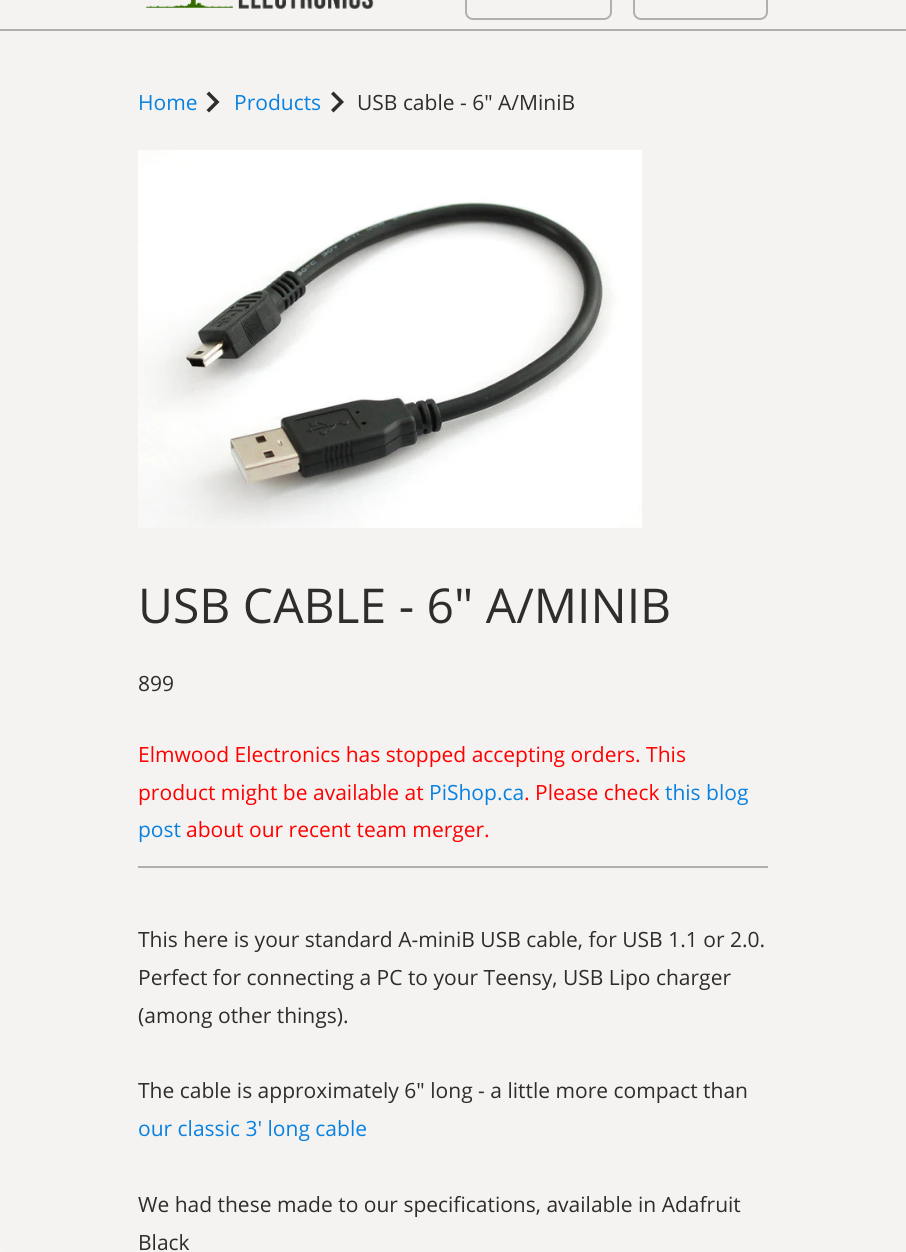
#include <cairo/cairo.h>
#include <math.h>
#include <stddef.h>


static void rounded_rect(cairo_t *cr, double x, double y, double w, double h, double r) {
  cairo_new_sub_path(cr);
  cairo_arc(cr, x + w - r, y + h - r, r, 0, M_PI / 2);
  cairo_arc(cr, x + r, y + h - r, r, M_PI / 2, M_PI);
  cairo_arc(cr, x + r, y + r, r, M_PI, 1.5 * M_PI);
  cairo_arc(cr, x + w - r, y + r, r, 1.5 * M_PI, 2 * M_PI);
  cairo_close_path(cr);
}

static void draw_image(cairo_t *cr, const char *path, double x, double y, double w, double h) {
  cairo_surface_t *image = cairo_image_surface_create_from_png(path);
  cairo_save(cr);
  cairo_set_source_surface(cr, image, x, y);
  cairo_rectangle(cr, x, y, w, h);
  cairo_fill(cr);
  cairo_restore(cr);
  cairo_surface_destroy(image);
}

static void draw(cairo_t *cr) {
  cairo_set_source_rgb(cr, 244 / 255.0, 243 / 255.0, 241 / 255.0);
  cairo_paint(cr);
  cairo_set_source_rgb(cr, 175 / 255.0, 175 / 255.0, 175 / 255.0);
  cairo_rectangle(cr, 0, 29, 906, 2);
  cairo_fill(cr);
  draw_image(cr, "images/1.png", 145, 0, 229, 9);
  rounded_rect(cr, 466, -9, 145, 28, 7);
  cairo_stroke(cr);
  rounded_rect(cr, 634, -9, 133, 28, 7);
  cairo_stroke(cr);
  cairo_set_source_rgb(cr, 245 / 255.0, 245 / 255.0, 245 / 255.0);
  cairo_rectangle(cr, 0, 1250, 3, 2);
  cairo_fill(cr);
  cairo_set_source_rgb(cr, 46 / 255.0, 45 / 255.0, 44 / 255.0);
  cairo_new_path(cr);
  cairo_move_to(cr, 209, 91.5);
  cairo_line_to(cr, 206.5, 94);
  cairo_line_to(cr, 214.5, 102);
  cairo_line_to(cr, 206.5, 110);
  cairo_line_to(cr, 209, 112.5);
  cairo_line_to(cr, 219.5, 102);
  cairo_close_path(cr);
  cairo_fill(cr);
  cairo_new_path(cr);
  cairo_move_to(cr, 333.5, 91.5);
  cairo_line_to(cr, 331, 94);
  cairo_line_to(cr, 339, 102);
  cairo_line_to(cr, 331, 110);
  cairo_line_to(cr, 333.5, 112.5);
  cairo_line_to(cr, 344, 102);
  cairo_close_path(cr);
  cairo_fill(cr);
  draw_image(cr, "images/2.png", 138, 150, 504, 378);
  cairo_set_source_rgb(cr, 175 / 255.0, 175 / 255.0, 175 / 255.0);
  cairo_rectangle(cr, 138, 866, 630, 2);
  cairo_fill(cr);
  cairo_select_font_face(cr, "Open Sans", CAIRO_FONT_SLANT_NORMAL, CAIRO_FONT_WEIGHT_NORMAL);
  cairo_set_font_size(cr, 21);
  cairo_set_source_rgb(cr, 8 / 255.0, 129 / 255.0, 225 / 255.0);
  cairo_move_to(cr, 138, 110);
  cairo_show_text(cr, "Home");
  cairo_move_to(cr, 234, 110);
  cairo_show_text(cr, "Products");
  cairo_set_source_rgb(cr, 46 / 255.0, 45 / 255.0, 44 / 255.0);
  cairo_move_to(cr, 357, 110);
  cairo_show_text(cr, "USB cable - 6\" A/MiniB");
  cairo_set_font_size(cr, 48);
  cairo_move_to(cr, 138, 623);
  cairo_show_text(cr, "USB CABLE - 6\" A/MINIB");
  cairo_set_font_size(cr, 21);
  cairo_move_to(cr, 138, 691);
  cairo_show_text(cr, "899");
  cairo_set_source_rgb(cr, 1, 0, 0);
  cairo_move_to(cr, 138, 762);
  cairo_show_text(cr, "Elmwood Electronics has stopped accepting orders. This");
  cairo_move_to(cr, 138, 800);
  cairo_show_text(cr, "product might be available at");
  cairo_set_source_rgb(cr, 8 / 255.0, 129 / 255.0, 225 / 255.0);
  cairo_move_to(cr, 429, 800);
  cairo_show_text(cr, "PiShop.ca");
  cairo_set_source_rgb(cr, 1, 0, 0);
  cairo_move_to(cr, 524, 800);
  cairo_show_text(cr, ". Please check");
  cairo_set_source_rgb(cr, 8 / 255.0, 129 / 255.0, 225 / 255.0);
  cairo_move_to(cr, 665, 800);
  cairo_show_text(cr, "this blog");
  cairo_move_to(cr, 138, 837);
  cairo_show_text(cr, "post");
  cairo_set_source_rgb(cr, 1, 0, 0);
  cairo_move_to(cr, 186, 837);
  cairo_show_text(cr, "about our recent team merger.");
  cairo_set_source_rgb(cr, 46 / 255.0, 45 / 255.0, 44 / 255.0);
  cairo_move_to(cr, 138, 947);
  cairo_show_text(cr, "This here is your standard A-miniB USB cable, for USB 1.1 or 2.0.");
  cairo_move_to(cr, 138, 985);
  cairo_show_text(cr, "Perfect for connecting a PC to your Teensy, USB Lipo charger");
  cairo_move_to(cr, 138, 1023);
  cairo_show_text(cr, "(among other things).");
  cairo_move_to(cr, 138, 1098);
  cairo_show_text(cr, "The cable is approximately 6\" long - a little more compact than");
  cairo_set_source_rgb(cr, 8 / 255.0, 129 / 255.0, 225 / 255.0);
  cairo_move_to(cr, 138, 1136);
  cairo_show_text(cr, "our classic 3' long cable");
  cairo_set_source_rgb(cr, 46 / 255.0, 45 / 255.0, 44 / 255.0);
  cairo_move_to(cr, 138, 1212);
  cairo_show_text(cr, "We had these made to our specifications, available in Adafruit");
  cairo_move_to(cr, 138, 1250);
  cairo_show_text(cr, "Black");
}

int main(void) {
  cairo_surface_t *surface = cairo_image_surface_create(CAIRO_FORMAT_RGB24, 906, 1252);
  cairo_t *cr = cairo_create(surface);
  cairo_font_options_t *options = cairo_font_options_create();
  cairo_font_options_set_hint_metrics(options, CAIRO_HINT_METRICS_OFF);
  cairo_font_options_set_hint_style(options, CAIRO_HINT_STYLE_NONE);
  cairo_set_font_options(cr, options);
  cairo_set_miter_limit(cr, 4);
  draw(cr);
  cairo_surface_write_to_png(surface, "out.png");
  cairo_font_options_destroy(options);
  cairo_destroy(cr);
  cairo_surface_destroy(surface);
  return 0;
}
